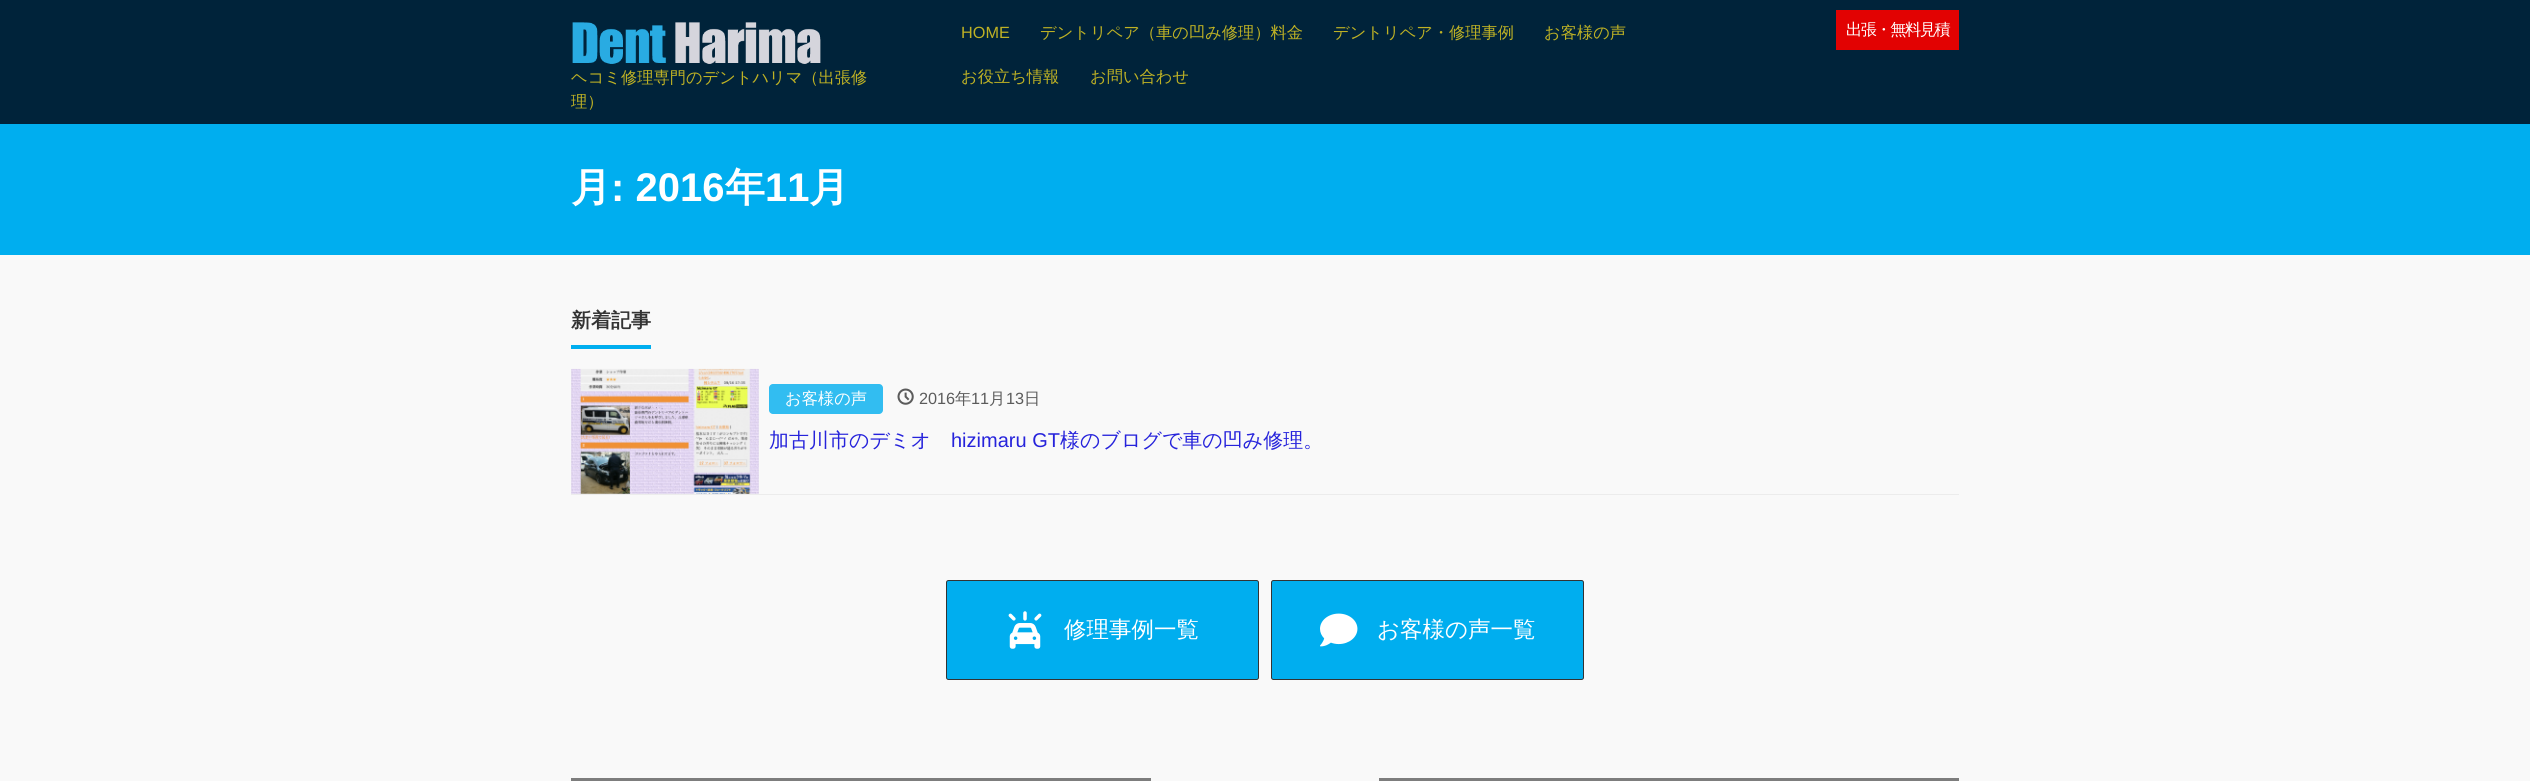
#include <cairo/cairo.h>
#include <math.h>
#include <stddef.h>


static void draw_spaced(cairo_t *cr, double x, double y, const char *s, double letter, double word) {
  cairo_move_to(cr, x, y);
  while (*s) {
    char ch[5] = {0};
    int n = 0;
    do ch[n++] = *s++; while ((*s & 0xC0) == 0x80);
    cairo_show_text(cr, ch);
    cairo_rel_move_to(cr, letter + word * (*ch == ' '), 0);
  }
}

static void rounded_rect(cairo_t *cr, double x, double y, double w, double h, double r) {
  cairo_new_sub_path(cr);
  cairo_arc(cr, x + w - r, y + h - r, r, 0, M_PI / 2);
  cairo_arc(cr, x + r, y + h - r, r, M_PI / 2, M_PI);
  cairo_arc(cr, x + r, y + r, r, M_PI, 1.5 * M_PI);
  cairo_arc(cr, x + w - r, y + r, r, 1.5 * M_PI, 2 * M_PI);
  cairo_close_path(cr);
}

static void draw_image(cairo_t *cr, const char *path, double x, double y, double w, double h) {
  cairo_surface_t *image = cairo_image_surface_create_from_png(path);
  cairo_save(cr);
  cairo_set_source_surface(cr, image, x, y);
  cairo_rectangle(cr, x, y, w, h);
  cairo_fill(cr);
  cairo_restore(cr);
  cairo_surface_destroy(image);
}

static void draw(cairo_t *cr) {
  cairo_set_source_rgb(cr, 249 / 255.0, 249 / 255.0, 249 / 255.0);
  cairo_paint(cr);
  cairo_set_source_rgb(cr, 0, 35 / 255.0, 58 / 255.0);
  cairo_rectangle(cr, 0, 0, 2530, 124);
  cairo_fill(cr);
  cairo_set_source_rgb(cr, 226 / 255.0, 2 / 255.0, 2 / 255.0);
  cairo_rectangle(cr, 1836, 10, 123, 40);
  cairo_fill(cr);
  draw_image(cr, "images/1.png", 572, 22, 249, 42);
  cairo_set_source_rgb(cr, 0, 174 / 255.0, 239 / 255.0);
  cairo_rectangle(cr, 0, 124, 2530, 131);
  cairo_fill(cr);
  cairo_rectangle(cr, 571, 345, 80, 4);
  cairo_fill(cr);
  cairo_set_source_rgb(cr, 236 / 255.0, 236 / 255.0, 236 / 255.0);
  cairo_rectangle(cr, 571, 494, 1388, 1);
  cairo_fill(cr);
  cairo_rectangle(cr, 571, 369, 188, 125);
  cairo_fill(cr);
  draw_image(cr, "images/2.png", 571, 368, 188, 126);
  cairo_set_source_rgb(cr, 50 / 255.0, 189 / 255.0, 241 / 255.0);
  rounded_rect(cr, 769, 384, 114, 30, 4);
  cairo_fill(cr);
  draw_image(cr, "images/3.png", 897, 388, 17, 17);
  cairo_set_source_rgb(cr, 0, 174 / 255.0, 239 / 255.0);
  rounded_rect(cr, 946.5, 580.5, 312, 99, 2);
  cairo_fill_preserve(cr);
  cairo_set_source_rgb(cr, 51 / 255.0, 51 / 255.0, 51 / 255.0);
  cairo_set_line_width(cr, 1);
  cairo_stroke(cr);
  draw_image(cr, "images/4.png", 1008, 611, 34, 38);
  cairo_set_source_rgb(cr, 0, 174 / 255.0, 239 / 255.0);
  rounded_rect(cr, 1271.5, 580.5, 312, 99, 2);
  cairo_fill_preserve(cr);
  cairo_set_source_rgb(cr, 51 / 255.0, 51 / 255.0, 51 / 255.0);
  cairo_stroke(cr);
  draw_image(cr, "images/5.png", 1320, 613, 38, 34);
  cairo_set_source_rgb(cr, 125 / 255.0, 125 / 255.0, 125 / 255.0);
  cairo_rectangle(cr, 571, 778, 580, 3);
  cairo_fill(cr);
  cairo_rectangle(cr, 1379, 778, 580, 3);
  cairo_fill(cr);
  cairo_select_font_face(cr, "Liberation Sans", CAIRO_FONT_SLANT_NORMAL, CAIRO_FONT_WEIGHT_NORMAL);
  cairo_set_font_size(cr, 16.25);
  cairo_set_source_rgb(cr, 191 / 255.0, 178 / 255.0, 36 / 255.0);
  cairo_move_to(cr, 961, 38);
  cairo_show_text(cr, "HOME");
  cairo_select_font_face(cr, "WenQuanYi Zen Hei Medium", CAIRO_FONT_SLANT_NORMAL, CAIRO_FONT_WEIGHT_NORMAL);
  cairo_move_to(cr, 1040, 38);
  cairo_show_text(cr, "デントリペア（車の凹み修理）料金");
  cairo_move_to(cr, 1333, 38);
  cairo_show_text(cr, "デントリペア・修理事例");
  cairo_move_to(cr, 1544, 38);
  cairo_show_text(cr, "お客様の声");
  cairo_move_to(cr, 961, 82);
  cairo_show_text(cr, "お役立ち情報");
  cairo_move_to(cr, 1090, 82);
  cairo_show_text(cr, "お問い合わせ");
  cairo_set_source_rgb(cr, 1, 1, 1);
  draw_spaced(cr, 1846, 35, "出張・無料見積", -1.5, 0);
  cairo_set_source_rgb(cr, 191 / 255.0, 178 / 255.0, 36 / 255.0);
  cairo_move_to(cr, 571, 83);
  cairo_show_text(cr, "ヘコミ修理専門のデントハリマ（出張修");
  cairo_move_to(cr, 571, 107);
  cairo_show_text(cr, "理）");
  cairo_select_font_face(cr, "WenQuanYi Zen Hei", CAIRO_FONT_SLANT_NORMAL, CAIRO_FONT_WEIGHT_BOLD);
  cairo_set_font_size(cr, 40);
  cairo_set_source_rgb(cr, 1, 1, 1);
  cairo_move_to(cr, 571, 201);
  cairo_show_text(cr, "月");
  cairo_select_font_face(cr, "Liberation Sans", CAIRO_FONT_SLANT_NORMAL, CAIRO_FONT_WEIGHT_BOLD);
  cairo_move_to(cr, 611, 201);
  cairo_show_text(cr, ": 2016");
  cairo_select_font_face(cr, "WenQuanYi Zen Hei", CAIRO_FONT_SLANT_NORMAL, CAIRO_FONT_WEIGHT_BOLD);
  cairo_move_to(cr, 725, 201);
  cairo_show_text(cr, "年");
  cairo_select_font_face(cr, "Liberation Sans", CAIRO_FONT_SLANT_NORMAL, CAIRO_FONT_WEIGHT_BOLD);
  cairo_move_to(cr, 765, 201);
  cairo_show_text(cr, "11");
  cairo_select_font_face(cr, "WenQuanYi Zen Hei", CAIRO_FONT_SLANT_NORMAL, CAIRO_FONT_WEIGHT_BOLD);
  cairo_move_to(cr, 809, 201);
  cairo_show_text(cr, "月");
  cairo_set_font_size(cr, 20);
  cairo_set_source_rgb(cr, 51 / 255.0, 51 / 255.0, 51 / 255.0);
  cairo_move_to(cr, 571, 327);
  cairo_show_text(cr, "新着記事");
  cairo_select_font_face(cr, "WenQuanYi Zen Hei Medium", CAIRO_FONT_SLANT_NORMAL, CAIRO_FONT_WEIGHT_NORMAL);
  cairo_set_font_size(cr, 16.25);
  cairo_set_source_rgb(cr, 1, 1, 1);
  cairo_move_to(cr, 785, 404);
  cairo_show_text(cr, "お客様の声");
  cairo_select_font_face(cr, "Liberation Sans", CAIRO_FONT_SLANT_NORMAL, CAIRO_FONT_WEIGHT_NORMAL);
  cairo_set_source_rgb(cr, 91 / 255.0, 91 / 255.0, 91 / 255.0);
  cairo_move_to(cr, 919, 404);
  cairo_show_text(cr, "2016");
  cairo_select_font_face(cr, "WenQuanYi Zen Hei Medium", CAIRO_FONT_SLANT_NORMAL, CAIRO_FONT_WEIGHT_NORMAL);
  cairo_move_to(cr, 955, 404);
  cairo_show_text(cr, "年");
  cairo_select_font_face(cr, "Liberation Sans", CAIRO_FONT_SLANT_NORMAL, CAIRO_FONT_WEIGHT_NORMAL);
  cairo_move_to(cr, 971, 404);
  cairo_show_text(cr, "11");
  cairo_select_font_face(cr, "WenQuanYi Zen Hei Medium", CAIRO_FONT_SLANT_NORMAL, CAIRO_FONT_WEIGHT_NORMAL);
  cairo_move_to(cr, 989, 404);
  cairo_show_text(cr, "月");
  cairo_select_font_face(cr, "Liberation Sans", CAIRO_FONT_SLANT_NORMAL, CAIRO_FONT_WEIGHT_NORMAL);
  cairo_move_to(cr, 1006, 404);
  cairo_show_text(cr, "13");
  cairo_select_font_face(cr, "WenQuanYi Zen Hei Medium", CAIRO_FONT_SLANT_NORMAL, CAIRO_FONT_WEIGHT_NORMAL);
  cairo_move_to(cr, 1024, 404);
  cairo_show_text(cr, "日");
  cairo_set_font_size(cr, 20);
  cairo_set_source_rgb(cr, 38 / 255.0, 35 / 255.0, 219 / 255.0);
  cairo_move_to(cr, 769, 447);
  cairo_show_text(cr, "加古川市のデミオ");
  cairo_select_font_face(cr, "Liberation Sans", CAIRO_FONT_SLANT_NORMAL, CAIRO_FONT_WEIGHT_NORMAL);
  cairo_move_to(cr, 951, 447);
  cairo_show_text(cr, "hizimaru GT");
  cairo_select_font_face(cr, "WenQuanYi Zen Hei Medium", CAIRO_FONT_SLANT_NORMAL, CAIRO_FONT_WEIGHT_NORMAL);
  cairo_move_to(cr, 1060, 447);
  cairo_show_text(cr, "様のブログで車の凹み修理。");
  cairo_set_font_size(cr, 22.5);
  cairo_set_source_rgb(cr, 1, 1, 1);
  cairo_move_to(cr, 1064, 637);
  cairo_show_text(cr, "修理事例一覧");
  cairo_move_to(cr, 1377, 637);
  cairo_show_text(cr, "お客様の声一覧");
}

int main(void) {
  cairo_surface_t *surface = cairo_image_surface_create(CAIRO_FORMAT_RGB24, 2530, 781);
  cairo_t *cr = cairo_create(surface);
  cairo_font_options_t *options = cairo_font_options_create();
  cairo_font_options_set_hint_metrics(options, CAIRO_HINT_METRICS_OFF);
  cairo_font_options_set_hint_style(options, CAIRO_HINT_STYLE_NONE);
  cairo_set_font_options(cr, options);
  cairo_set_miter_limit(cr, 4);
  draw(cr);
  cairo_surface_write_to_png(surface, "out.png");
  cairo_font_options_destroy(options);
  cairo_destroy(cr);
  cairo_surface_destroy(surface);
  return 0;
}
